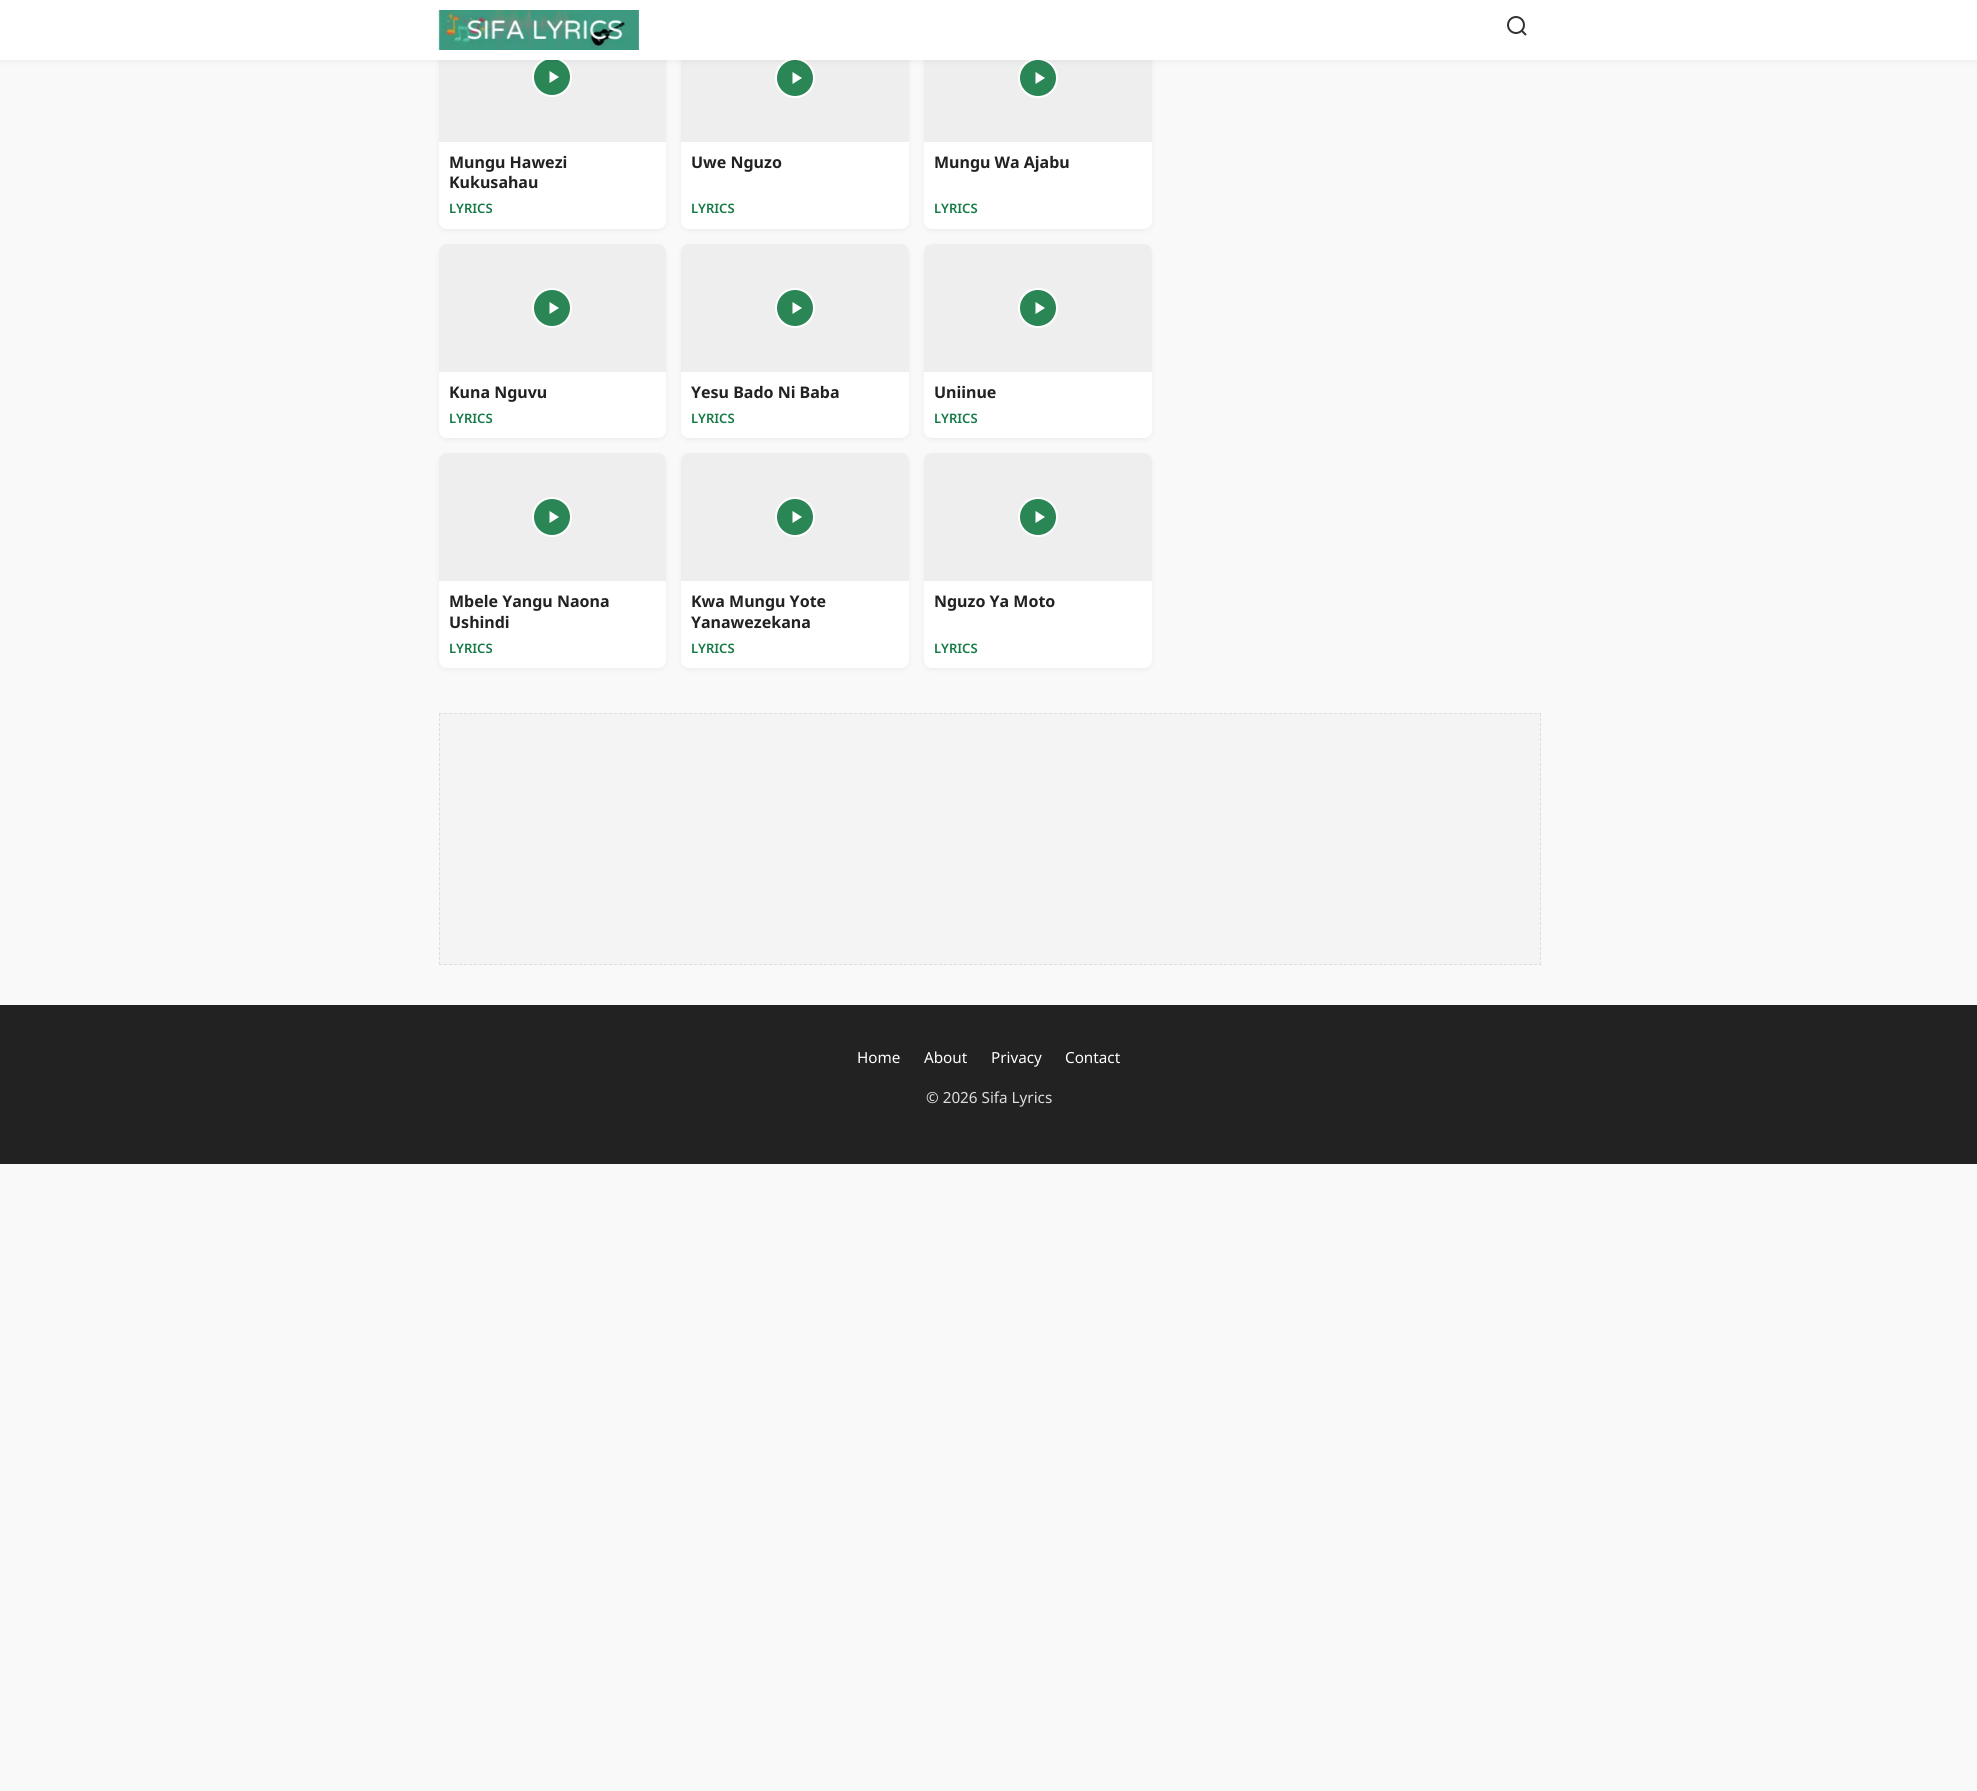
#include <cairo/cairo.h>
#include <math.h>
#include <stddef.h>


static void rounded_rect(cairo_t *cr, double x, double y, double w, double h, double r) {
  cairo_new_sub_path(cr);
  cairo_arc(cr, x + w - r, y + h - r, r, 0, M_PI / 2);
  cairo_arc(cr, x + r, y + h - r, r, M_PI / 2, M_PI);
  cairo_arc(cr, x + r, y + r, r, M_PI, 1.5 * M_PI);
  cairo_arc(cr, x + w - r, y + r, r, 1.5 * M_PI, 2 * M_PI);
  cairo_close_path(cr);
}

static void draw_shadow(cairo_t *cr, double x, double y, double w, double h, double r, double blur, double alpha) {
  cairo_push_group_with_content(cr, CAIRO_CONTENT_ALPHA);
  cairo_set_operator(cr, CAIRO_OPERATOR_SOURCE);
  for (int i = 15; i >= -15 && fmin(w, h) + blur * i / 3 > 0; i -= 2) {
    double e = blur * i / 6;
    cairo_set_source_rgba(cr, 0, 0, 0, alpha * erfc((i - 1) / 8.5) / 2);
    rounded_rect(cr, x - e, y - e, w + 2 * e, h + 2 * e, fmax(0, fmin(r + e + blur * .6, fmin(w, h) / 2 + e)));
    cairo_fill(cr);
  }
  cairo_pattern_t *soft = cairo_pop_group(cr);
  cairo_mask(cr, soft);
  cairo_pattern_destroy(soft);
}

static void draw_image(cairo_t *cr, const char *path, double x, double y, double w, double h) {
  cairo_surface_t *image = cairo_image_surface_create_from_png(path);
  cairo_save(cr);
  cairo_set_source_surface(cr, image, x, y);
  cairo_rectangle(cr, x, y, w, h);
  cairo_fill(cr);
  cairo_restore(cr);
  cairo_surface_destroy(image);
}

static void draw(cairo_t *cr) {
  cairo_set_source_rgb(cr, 249 / 255.0, 249 / 255.0, 249 / 255.0);
  cairo_paint(cr);
  cairo_set_source_rgb(cr, 0, 0, 0);
  draw_shadow(cr, 439, 15, 227, 216, 8, 2.5, 0.05);
  cairo_set_source_rgb(cr, 1, 1, 1);
  rounded_rect(cr, 439, 13, 227, 216, 8);
  cairo_fill(cr);
  cairo_set_source_rgb(cr, 238 / 255.0, 238 / 255.0, 238 / 255.0);
  cairo_rectangle(cr, 439, 60, 227, 82);
  cairo_fill(cr);
  cairo_set_source_rgb(cr, 43 / 255.0, 134 / 255.0, 86 / 255.0);
  cairo_arc(cr, 552, 77, 19, 0, 2 * M_PI);
  cairo_fill_preserve(cr);
  cairo_set_source_rgb(cr, 1, 1, 1);
  cairo_stroke(cr);
  cairo_set_source_rgb(cr, 0, 0, 0);
  draw_shadow(cr, 681, 15, 228, 216, 8, 2.5, 0.05);
  cairo_set_source_rgb(cr, 1, 1, 1);
  rounded_rect(cr, 681, 13, 228, 216, 8);
  cairo_fill(cr);
  cairo_set_source_rgb(cr, 238 / 255.0, 238 / 255.0, 238 / 255.0);
  cairo_rectangle(cr, 681, 60, 228, 82);
  cairo_fill(cr);
  cairo_set_source_rgb(cr, 43 / 255.0, 134 / 255.0, 86 / 255.0);
  cairo_arc(cr, 795, 78, 19, 0, 2 * M_PI);
  cairo_fill_preserve(cr);
  cairo_set_source_rgb(cr, 1, 1, 1);
  cairo_stroke(cr);
  cairo_set_source_rgb(cr, 0, 0, 0);
  draw_shadow(cr, 924, 15, 228, 216, 8, 2.5, 0.05);
  cairo_set_source_rgb(cr, 1, 1, 1);
  rounded_rect(cr, 924, 13, 228, 216, 8);
  cairo_fill(cr);
  cairo_set_source_rgb(cr, 238 / 255.0, 238 / 255.0, 238 / 255.0);
  cairo_rectangle(cr, 924, 60, 228, 82);
  cairo_fill(cr);
  cairo_set_source_rgb(cr, 43 / 255.0, 134 / 255.0, 86 / 255.0);
  cairo_arc(cr, 1038, 78, 19, 0, 2 * M_PI);
  cairo_fill_preserve(cr);
  cairo_set_source_rgb(cr, 1, 1, 1);
  cairo_stroke(cr);
  cairo_set_source_rgb(cr, 0, 0, 0);
  draw_shadow(cr, 0, 2, 1977, 60, 0, 2.5, 0.05);
  cairo_set_source_rgb(cr, 1, 1, 1);
  cairo_rectangle(cr, 0, 0, 1977, 60);
  cairo_fill(cr);
  draw_image(cr, "images/1.png", 438, 10, 201, 40);
  cairo_arc(cr, 1516, 25, 8, 0, 2 * M_PI);
  cairo_set_source_rgb(cr, 51 / 255.0, 51 / 255.0, 51 / 255.0);
  cairo_stroke(cr);
  cairo_new_path(cr);
  cairo_move_to(cr, 1526, 35);
  cairo_line_to(cr, 1521.5, 30.5);
  cairo_stroke(cr);
  cairo_set_source_rgb(cr, 1, 1, 1);
  cairo_new_path(cr);
  cairo_move_to(cr, 549.5, 71);
  cairo_line_to(cr, 549.5, 83);
  cairo_line_to(cr, 559, 77);
  cairo_close_path(cr);
  cairo_fill(cr);
  cairo_new_path(cr);
  cairo_move_to(cr, 792.5, 72);
  cairo_line_to(cr, 792.5, 84);
  cairo_line_to(cr, 802, 78);
  cairo_close_path(cr);
  cairo_fill(cr);
  cairo_new_path(cr);
  cairo_move_to(cr, 1035.5, 72);
  cairo_line_to(cr, 1035.5, 84);
  cairo_line_to(cr, 1045, 78);
  cairo_close_path(cr);
  cairo_fill(cr);
  cairo_set_source_rgb(cr, 0, 0, 0);
  draw_shadow(cr, 439, 246, 227, 194, 8, 2.5, 0.05);
  cairo_set_source_rgb(cr, 1, 1, 1);
  rounded_rect(cr, 439, 244, 227, 194, 8);
  cairo_fill(cr);
  cairo_set_source_rgb(cr, 238 / 255.0, 238 / 255.0, 238 / 255.0);
  cairo_new_path(cr);
  cairo_move_to(cr, 447, 244);
  cairo_line_to(cr, 658, 244);
  cairo_curve_to(cr, 662.5, 244, 666, 247.5, 666, 252);
  cairo_line_to(cr, 666, 372);
  cairo_line_to(cr, 439, 372);
  cairo_line_to(cr, 439, 252);
  cairo_curve_to(cr, 439, 247.5, 442.5, 244, 447, 244);
  cairo_close_path(cr);
  cairo_fill(cr);
  cairo_set_source_rgb(cr, 43 / 255.0, 134 / 255.0, 86 / 255.0);
  cairo_arc(cr, 552, 308, 19, 0, 2 * M_PI);
  cairo_fill_preserve(cr);
  cairo_set_source_rgb(cr, 1, 1, 1);
  cairo_stroke(cr);
  cairo_new_path(cr);
  cairo_move_to(cr, 549.5, 302);
  cairo_line_to(cr, 549.5, 314);
  cairo_line_to(cr, 559, 308);
  cairo_close_path(cr);
  cairo_fill(cr);
  cairo_set_source_rgb(cr, 0, 0, 0);
  draw_shadow(cr, 681, 246, 228, 194, 8, 2.5, 0.05);
  cairo_set_source_rgb(cr, 1, 1, 1);
  rounded_rect(cr, 681, 244, 228, 194, 8);
  cairo_fill(cr);
  cairo_set_source_rgb(cr, 238 / 255.0, 238 / 255.0, 238 / 255.0);
  cairo_new_path(cr);
  cairo_move_to(cr, 689, 244);
  cairo_line_to(cr, 901, 244);
  cairo_curve_to(cr, 905.5, 244, 909, 247.5, 909, 252);
  cairo_line_to(cr, 909, 372);
  cairo_line_to(cr, 681, 372);
  cairo_line_to(cr, 681, 252);
  cairo_curve_to(cr, 681, 247.5, 684.5, 244, 689, 244);
  cairo_close_path(cr);
  cairo_fill(cr);
  cairo_set_source_rgb(cr, 43 / 255.0, 134 / 255.0, 86 / 255.0);
  cairo_arc(cr, 795, 308, 19, 0, 2 * M_PI);
  cairo_fill_preserve(cr);
  cairo_set_source_rgb(cr, 1, 1, 1);
  cairo_stroke(cr);
  cairo_new_path(cr);
  cairo_move_to(cr, 792.5, 302);
  cairo_line_to(cr, 792.5, 314);
  cairo_line_to(cr, 802, 308);
  cairo_close_path(cr);
  cairo_fill(cr);
  cairo_set_source_rgb(cr, 0, 0, 0);
  draw_shadow(cr, 924, 246, 228, 194, 8, 2.5, 0.05);
  cairo_set_source_rgb(cr, 1, 1, 1);
  rounded_rect(cr, 924, 244, 228, 194, 8);
  cairo_fill(cr);
  cairo_set_source_rgb(cr, 238 / 255.0, 238 / 255.0, 238 / 255.0);
  cairo_new_path(cr);
  cairo_move_to(cr, 932, 244);
  cairo_line_to(cr, 1144, 244);
  cairo_curve_to(cr, 1148.5, 244, 1152, 247.5, 1152, 252);
  cairo_line_to(cr, 1152, 372);
  cairo_line_to(cr, 924, 372);
  cairo_line_to(cr, 924, 252);
  cairo_curve_to(cr, 924, 247.5, 927.5, 244, 932, 244);
  cairo_close_path(cr);
  cairo_fill(cr);
  cairo_set_source_rgb(cr, 43 / 255.0, 134 / 255.0, 86 / 255.0);
  cairo_arc(cr, 1038, 308, 19, 0, 2 * M_PI);
  cairo_fill_preserve(cr);
  cairo_set_source_rgb(cr, 1, 1, 1);
  cairo_stroke(cr);
  cairo_new_path(cr);
  cairo_move_to(cr, 1035.5, 302);
  cairo_line_to(cr, 1035.5, 314);
  cairo_line_to(cr, 1045, 308);
  cairo_close_path(cr);
  cairo_fill(cr);
  cairo_set_source_rgb(cr, 0, 0, 0);
  draw_shadow(cr, 439, 455, 227, 215, 8, 2.5, 0.05);
  cairo_set_source_rgb(cr, 1, 1, 1);
  rounded_rect(cr, 439, 453, 227, 215, 8);
  cairo_fill(cr);
  cairo_set_source_rgb(cr, 238 / 255.0, 238 / 255.0, 238 / 255.0);
  cairo_new_path(cr);
  cairo_move_to(cr, 447, 453);
  cairo_line_to(cr, 658, 453);
  cairo_curve_to(cr, 662.5, 453, 666, 456.5, 666, 461);
  cairo_line_to(cr, 666, 581);
  cairo_line_to(cr, 439, 581);
  cairo_line_to(cr, 439, 461);
  cairo_curve_to(cr, 439, 456.5, 442.5, 453, 447, 453);
  cairo_close_path(cr);
  cairo_fill(cr);
  cairo_set_source_rgb(cr, 43 / 255.0, 134 / 255.0, 86 / 255.0);
  cairo_arc(cr, 552, 517, 19, 0, 2 * M_PI);
  cairo_fill_preserve(cr);
  cairo_set_source_rgb(cr, 1, 1, 1);
  cairo_stroke(cr);
  cairo_new_path(cr);
  cairo_move_to(cr, 549.5, 511);
  cairo_line_to(cr, 549.5, 523);
  cairo_line_to(cr, 559, 517);
  cairo_close_path(cr);
  cairo_fill(cr);
  cairo_set_source_rgb(cr, 0, 0, 0);
  draw_shadow(cr, 681, 455, 228, 215, 8, 2.5, 0.05);
  cairo_set_source_rgb(cr, 1, 1, 1);
  rounded_rect(cr, 681, 453, 228, 215, 8);
  cairo_fill(cr);
  cairo_set_source_rgb(cr, 238 / 255.0, 238 / 255.0, 238 / 255.0);
  cairo_new_path(cr);
  cairo_move_to(cr, 689, 453);
  cairo_line_to(cr, 901, 453);
  cairo_curve_to(cr, 905.5, 453, 909, 456.5, 909, 461);
  cairo_line_to(cr, 909, 581);
  cairo_line_to(cr, 681, 581);
  cairo_line_to(cr, 681, 461);
  cairo_curve_to(cr, 681, 456.5, 684.5, 453, 689, 453);
  cairo_close_path(cr);
  cairo_fill(cr);
  cairo_set_source_rgb(cr, 43 / 255.0, 134 / 255.0, 86 / 255.0);
  cairo_arc(cr, 795, 517, 19, 0, 2 * M_PI);
  cairo_fill_preserve(cr);
  cairo_set_source_rgb(cr, 1, 1, 1);
  cairo_stroke(cr);
  cairo_new_path(cr);
  cairo_move_to(cr, 792.5, 511);
  cairo_line_to(cr, 792.5, 523);
  cairo_line_to(cr, 802, 517);
  cairo_close_path(cr);
  cairo_fill(cr);
  cairo_set_source_rgb(cr, 0, 0, 0);
  draw_shadow(cr, 924, 455, 228, 215, 8, 2.5, 0.05);
  cairo_set_source_rgb(cr, 1, 1, 1);
  rounded_rect(cr, 924, 453, 228, 215, 8);
  cairo_fill(cr);
  cairo_set_source_rgb(cr, 238 / 255.0, 238 / 255.0, 238 / 255.0);
  cairo_new_path(cr);
  cairo_move_to(cr, 932, 453);
  cairo_line_to(cr, 1144, 453);
  cairo_curve_to(cr, 1148.5, 453, 1152, 456.5, 1152, 461);
  cairo_line_to(cr, 1152, 581);
  cairo_line_to(cr, 924, 581);
  cairo_line_to(cr, 924, 461);
  cairo_curve_to(cr, 924, 456.5, 927.5, 453, 932, 453);
  cairo_close_path(cr);
  cairo_fill(cr);
  cairo_set_source_rgb(cr, 43 / 255.0, 134 / 255.0, 86 / 255.0);
  cairo_arc(cr, 1038, 517, 19, 0, 2 * M_PI);
  cairo_fill_preserve(cr);
  cairo_set_source_rgb(cr, 1, 1, 1);
  cairo_stroke(cr);
  cairo_new_path(cr);
  cairo_move_to(cr, 1035.5, 511);
  cairo_line_to(cr, 1035.5, 523);
  cairo_line_to(cr, 1045, 517);
  cairo_close_path(cr);
  cairo_fill(cr);
  cairo_set_source_rgb(cr, 244 / 255.0, 244 / 255.0, 244 / 255.0);
  cairo_rectangle(cr, 439, 713, 1102, 252);
  cairo_fill(cr);
  cairo_new_path(cr);
  cairo_move_to(cr, 439, 713.5);
  cairo_line_to(cr, 1541, 713.5);
  cairo_set_source_rgb(cr, 221 / 255.0, 221 / 255.0, 221 / 255.0);
  cairo_set_line_width(cr, 1);
  cairo_set_dash(cr, (double[]){3, 2}, 2, 0);
  cairo_stroke(cr);
  cairo_new_path(cr);
  cairo_move_to(cr, 1540.5, 713);
  cairo_line_to(cr, 1540.5, 965);
  cairo_set_dash(cr, (double[]){3, 1.98}, 2, 0);
  cairo_stroke(cr);
  cairo_new_path(cr);
  cairo_move_to(cr, 439, 964.5);
  cairo_line_to(cr, 1541, 964.5);
  cairo_set_dash(cr, (double[]){3, 2}, 2, 0);
  cairo_stroke(cr);
  cairo_new_path(cr);
  cairo_move_to(cr, 439.5, 713);
  cairo_line_to(cr, 439.5, 965);
  cairo_set_dash(cr, (double[]){3, 1.98}, 2, 0);
  cairo_stroke(cr);
  cairo_set_source_rgb(cr, 34 / 255.0, 34 / 255.0, 34 / 255.0);
  cairo_rectangle(cr, 0, 1005, 1977, 159);
  cairo_fill(cr);
  cairo_select_font_face(cr, "Noto Sans", CAIRO_FONT_SLANT_NORMAL, CAIRO_FONT_WEIGHT_BOLD);
  cairo_set_font_size(cr, 16);
  cairo_move_to(cr, 449, 168);
  cairo_show_text(cr, "Mungu Hawezi");
  cairo_move_to(cr, 449, 188);
  cairo_show_text(cr, "Kukusahau");
  cairo_select_font_face(cr, "Noto Sans SemiBold", CAIRO_FONT_SLANT_NORMAL, CAIRO_FONT_WEIGHT_NORMAL);
  cairo_set_font_size(cr, 13);
  cairo_set_source_rgb(cr, 21 / 255.0, 122 / 255.0, 69 / 255.0);
  cairo_move_to(cr, 449, 213);
  cairo_show_text(cr, "LYRICS");
  cairo_select_font_face(cr, "Noto Sans", CAIRO_FONT_SLANT_NORMAL, CAIRO_FONT_WEIGHT_BOLD);
  cairo_set_font_size(cr, 16);
  cairo_set_source_rgb(cr, 34 / 255.0, 34 / 255.0, 34 / 255.0);
  cairo_move_to(cr, 691, 168);
  cairo_show_text(cr, "Uwe Nguzo");
  cairo_select_font_face(cr, "Noto Sans SemiBold", CAIRO_FONT_SLANT_NORMAL, CAIRO_FONT_WEIGHT_NORMAL);
  cairo_set_font_size(cr, 13);
  cairo_set_source_rgb(cr, 21 / 255.0, 122 / 255.0, 69 / 255.0);
  cairo_move_to(cr, 691, 213);
  cairo_show_text(cr, "LYRICS");
  cairo_select_font_face(cr, "Noto Sans", CAIRO_FONT_SLANT_NORMAL, CAIRO_FONT_WEIGHT_BOLD);
  cairo_set_font_size(cr, 16);
  cairo_set_source_rgb(cr, 34 / 255.0, 34 / 255.0, 34 / 255.0);
  cairo_move_to(cr, 934, 168);
  cairo_show_text(cr, "Mungu Wa Ajabu");
  cairo_select_font_face(cr, "Noto Sans SemiBold", CAIRO_FONT_SLANT_NORMAL, CAIRO_FONT_WEIGHT_NORMAL);
  cairo_set_font_size(cr, 13);
  cairo_set_source_rgb(cr, 21 / 255.0, 122 / 255.0, 69 / 255.0);
  cairo_move_to(cr, 934, 213);
  cairo_show_text(cr, "LYRICS");
  cairo_select_font_face(cr, "Noto Sans", CAIRO_FONT_SLANT_NORMAL, CAIRO_FONT_WEIGHT_BOLD);
  cairo_set_font_size(cr, 16);
  cairo_set_source_rgb(cr, 34 / 255.0, 34 / 255.0, 34 / 255.0);
  cairo_move_to(cr, 449, 398);
  cairo_show_text(cr, "Kuna Nguvu");
  cairo_select_font_face(cr, "Noto Sans SemiBold", CAIRO_FONT_SLANT_NORMAL, CAIRO_FONT_WEIGHT_NORMAL);
  cairo_set_font_size(cr, 13);
  cairo_set_source_rgb(cr, 21 / 255.0, 122 / 255.0, 69 / 255.0);
  cairo_move_to(cr, 449, 423);
  cairo_show_text(cr, "LYRICS");
  cairo_select_font_face(cr, "Noto Sans", CAIRO_FONT_SLANT_NORMAL, CAIRO_FONT_WEIGHT_BOLD);
  cairo_set_font_size(cr, 16);
  cairo_set_source_rgb(cr, 34 / 255.0, 34 / 255.0, 34 / 255.0);
  cairo_move_to(cr, 691, 398);
  cairo_show_text(cr, "Yesu Bado Ni Baba");
  cairo_select_font_face(cr, "Noto Sans SemiBold", CAIRO_FONT_SLANT_NORMAL, CAIRO_FONT_WEIGHT_NORMAL);
  cairo_set_font_size(cr, 13);
  cairo_set_source_rgb(cr, 21 / 255.0, 122 / 255.0, 69 / 255.0);
  cairo_move_to(cr, 691, 423);
  cairo_show_text(cr, "LYRICS");
  cairo_select_font_face(cr, "Noto Sans", CAIRO_FONT_SLANT_NORMAL, CAIRO_FONT_WEIGHT_BOLD);
  cairo_set_font_size(cr, 16);
  cairo_set_source_rgb(cr, 34 / 255.0, 34 / 255.0, 34 / 255.0);
  cairo_move_to(cr, 934, 398);
  cairo_show_text(cr, "Uniinue");
  cairo_select_font_face(cr, "Noto Sans SemiBold", CAIRO_FONT_SLANT_NORMAL, CAIRO_FONT_WEIGHT_NORMAL);
  cairo_set_font_size(cr, 13);
  cairo_set_source_rgb(cr, 21 / 255.0, 122 / 255.0, 69 / 255.0);
  cairo_move_to(cr, 934, 423);
  cairo_show_text(cr, "LYRICS");
  cairo_select_font_face(cr, "Noto Sans", CAIRO_FONT_SLANT_NORMAL, CAIRO_FONT_WEIGHT_BOLD);
  cairo_set_font_size(cr, 16);
  cairo_set_source_rgb(cr, 34 / 255.0, 34 / 255.0, 34 / 255.0);
  cairo_move_to(cr, 449, 607);
  cairo_show_text(cr, "Mbele Yangu Naona");
  cairo_move_to(cr, 449, 628);
  cairo_show_text(cr, "Ushindi");
  cairo_select_font_face(cr, "Noto Sans SemiBold", CAIRO_FONT_SLANT_NORMAL, CAIRO_FONT_WEIGHT_NORMAL);
  cairo_set_font_size(cr, 13);
  cairo_set_source_rgb(cr, 21 / 255.0, 122 / 255.0, 69 / 255.0);
  cairo_move_to(cr, 449, 653);
  cairo_show_text(cr, "LYRICS");
  cairo_select_font_face(cr, "Noto Sans", CAIRO_FONT_SLANT_NORMAL, CAIRO_FONT_WEIGHT_BOLD);
  cairo_set_font_size(cr, 16);
  cairo_set_source_rgb(cr, 34 / 255.0, 34 / 255.0, 34 / 255.0);
  cairo_move_to(cr, 691, 607);
  cairo_show_text(cr, "Kwa Mungu Yote");
  cairo_move_to(cr, 691, 628);
  cairo_show_text(cr, "Yanawezekana");
  cairo_select_font_face(cr, "Noto Sans SemiBold", CAIRO_FONT_SLANT_NORMAL, CAIRO_FONT_WEIGHT_NORMAL);
  cairo_set_font_size(cr, 13);
  cairo_set_source_rgb(cr, 21 / 255.0, 122 / 255.0, 69 / 255.0);
  cairo_move_to(cr, 691, 653);
  cairo_show_text(cr, "LYRICS");
  cairo_select_font_face(cr, "Noto Sans", CAIRO_FONT_SLANT_NORMAL, CAIRO_FONT_WEIGHT_BOLD);
  cairo_set_font_size(cr, 16);
  cairo_set_source_rgb(cr, 34 / 255.0, 34 / 255.0, 34 / 255.0);
  cairo_move_to(cr, 934, 607);
  cairo_show_text(cr, "Nguzo Ya Moto");
  cairo_select_font_face(cr, "Noto Sans SemiBold", CAIRO_FONT_SLANT_NORMAL, CAIRO_FONT_WEIGHT_NORMAL);
  cairo_set_font_size(cr, 13);
  cairo_set_source_rgb(cr, 21 / 255.0, 122 / 255.0, 69 / 255.0);
  cairo_move_to(cr, 934, 653);
  cairo_show_text(cr, "LYRICS");
  cairo_select_font_face(cr, "Noto Sans", CAIRO_FONT_SLANT_NORMAL, CAIRO_FONT_WEIGHT_NORMAL);
  cairo_set_font_size(cr, 15.25);
  cairo_set_source_rgb(cr, 1, 1, 1);
  cairo_move_to(cr, 857, 1063);
  cairo_show_text(cr, "Home");
  cairo_move_to(cr, 924, 1063);
  cairo_show_text(cr, "About");
  cairo_move_to(cr, 991, 1063);
  cairo_show_text(cr, "Privacy");
  cairo_move_to(cr, 1065, 1063);
  cairo_show_text(cr, "Contact");
  cairo_set_source_rgb(cr, 221 / 255.0, 221 / 255.0, 221 / 255.0);
  cairo_move_to(cr, 926, 1103);
  cairo_show_text(cr, "© 2026 Sifa Lyrics");
}

int main(void) {
  cairo_surface_t *surface = cairo_image_surface_create(CAIRO_FORMAT_RGB24, 1977, 1791);
  cairo_t *cr = cairo_create(surface);
  cairo_font_options_t *options = cairo_font_options_create();
  cairo_font_options_set_hint_metrics(options, CAIRO_HINT_METRICS_OFF);
  cairo_font_options_set_hint_style(options, CAIRO_HINT_STYLE_NONE);
  cairo_set_font_options(cr, options);
  cairo_set_miter_limit(cr, 4);
  draw(cr);
  cairo_surface_write_to_png(surface, "out.png");
  cairo_font_options_destroy(options);
  cairo_destroy(cr);
  cairo_surface_destroy(surface);
  return 0;
}
